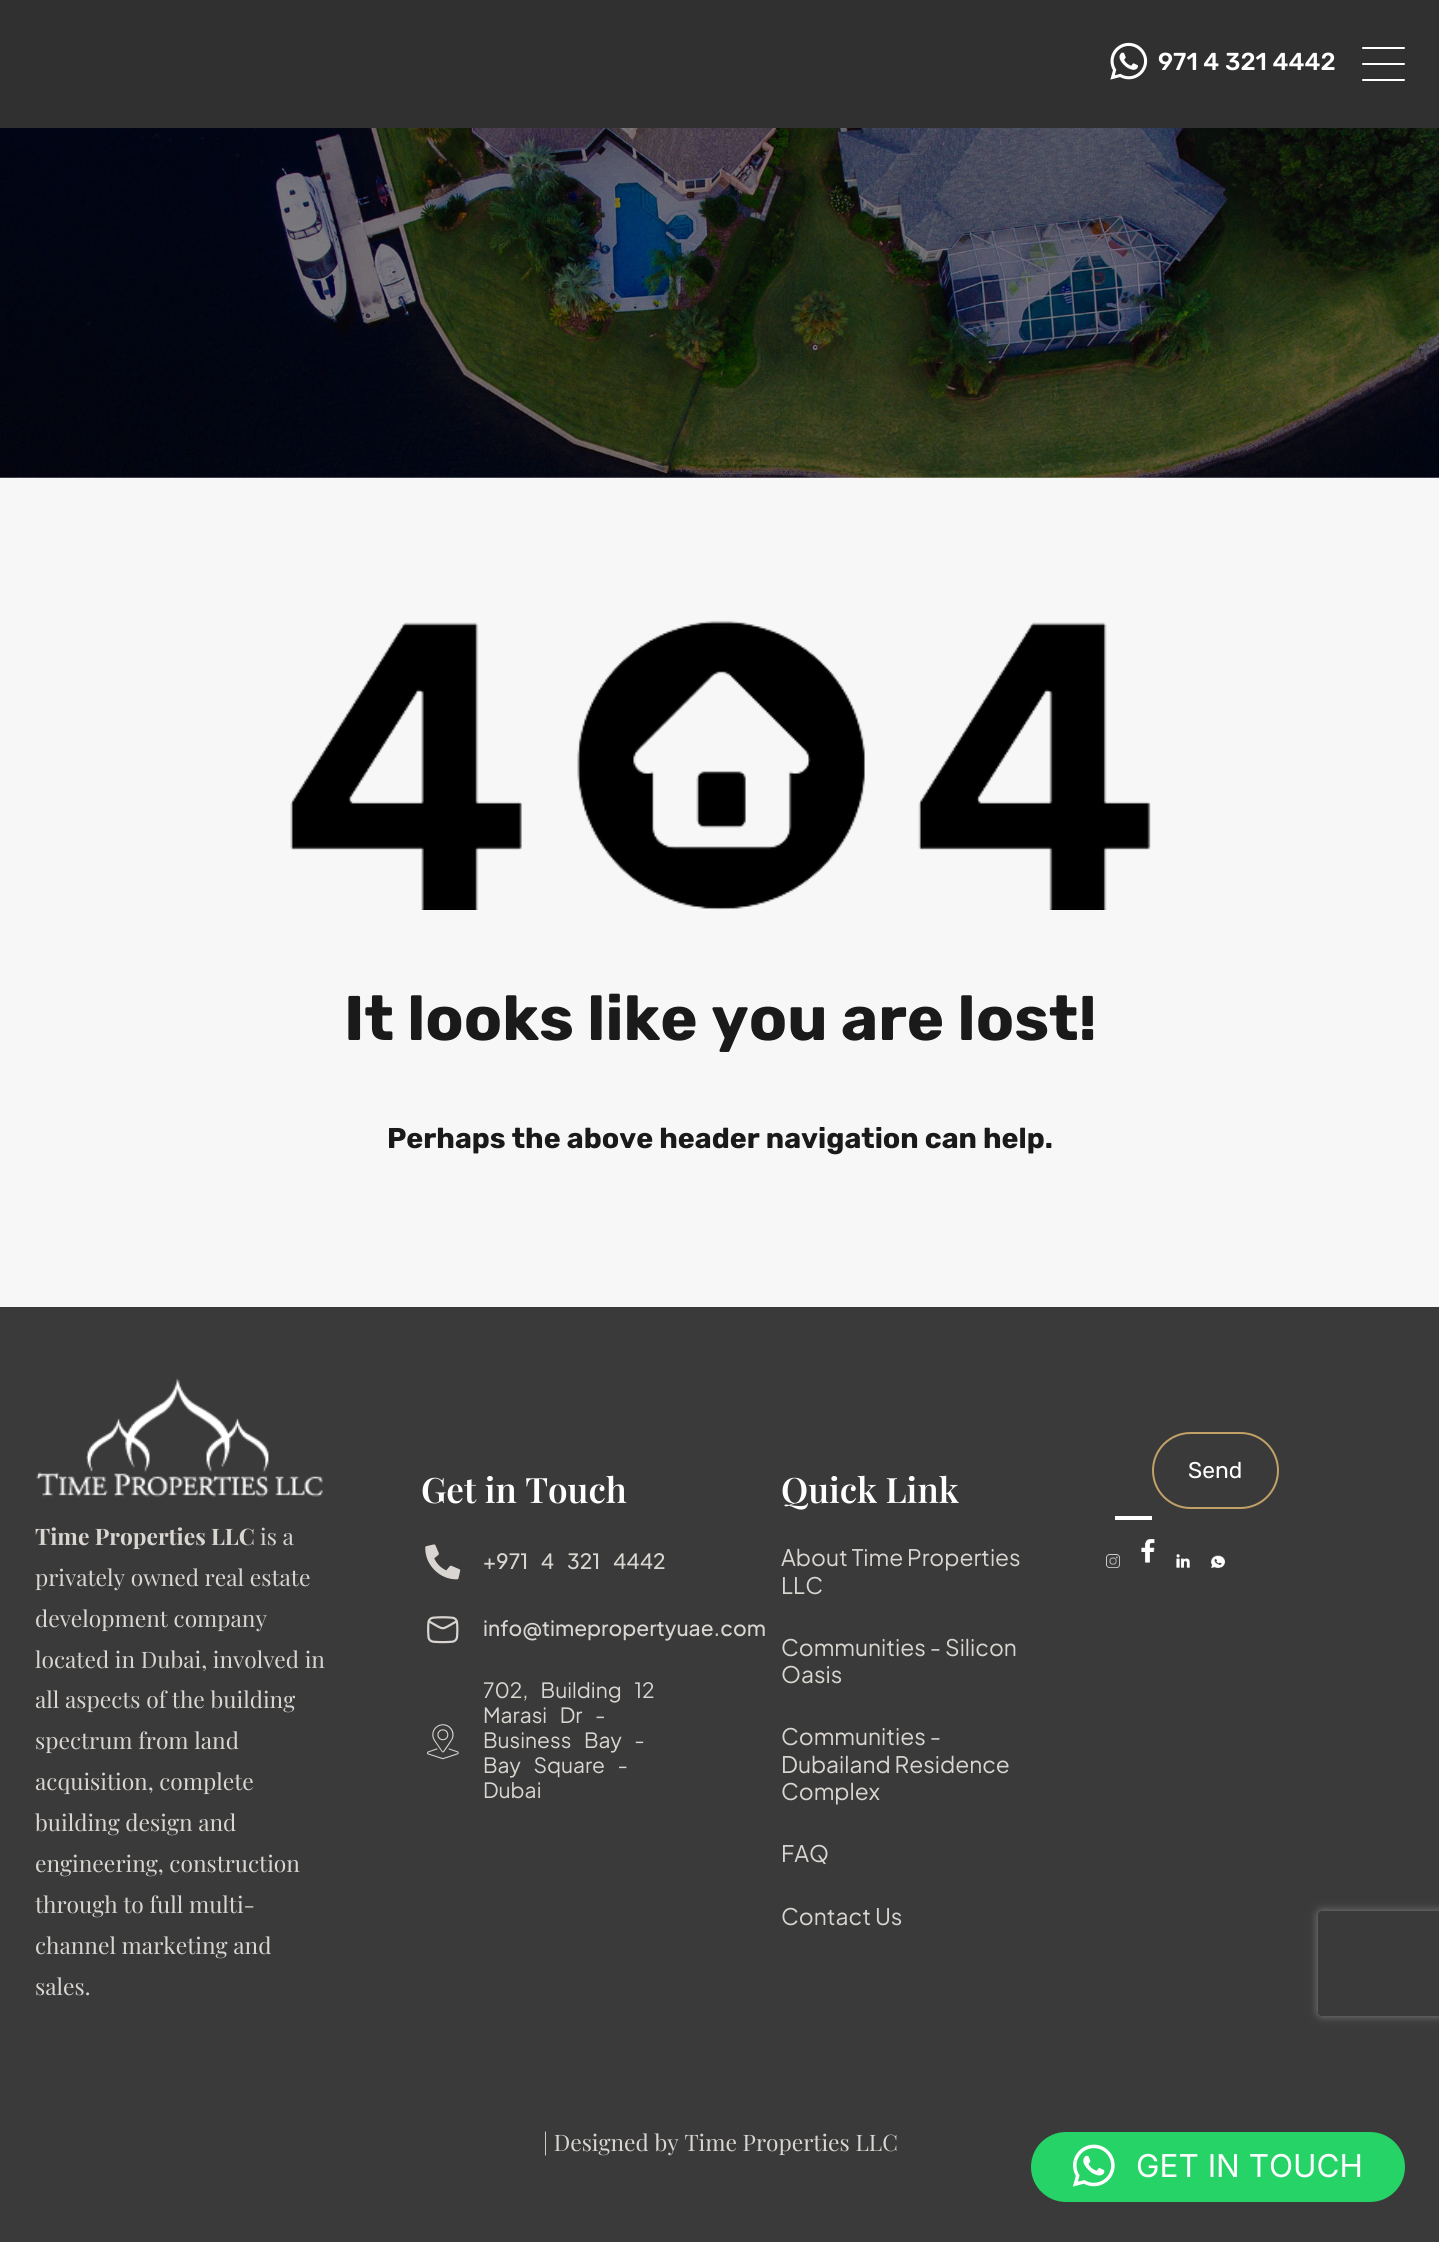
#include <cairo/cairo.h>
#include <math.h>
#include <stddef.h>


static void draw_spaced(cairo_t *cr, double x, double y, const char *s, double letter, double word) {
  cairo_move_to(cr, x, y);
  while (*s) {
    char ch[5] = {0};
    int n = 0;
    do ch[n++] = *s++; while ((*s & 0xC0) == 0x80);
    cairo_show_text(cr, ch);
    cairo_rel_move_to(cr, letter + word * (*ch == ' '), 0);
  }
}

static void rounded_rect(cairo_t *cr, double x, double y, double w, double h, double r) {
  cairo_new_sub_path(cr);
  cairo_arc(cr, x + w - r, y + h - r, r, 0, M_PI / 2);
  cairo_arc(cr, x + r, y + h - r, r, M_PI / 2, M_PI);
  cairo_arc(cr, x + r, y + r, r, M_PI, 1.5 * M_PI);
  cairo_arc(cr, x + w - r, y + r, r, 1.5 * M_PI, 2 * M_PI);
  cairo_close_path(cr);
}

static void draw_shadow(cairo_t *cr, double x, double y, double w, double h, double r, double blur, double alpha) {
  cairo_push_group_with_content(cr, CAIRO_CONTENT_ALPHA);
  cairo_set_operator(cr, CAIRO_OPERATOR_SOURCE);
  for (int i = 15; i >= -15 && fmin(w, h) + blur * i / 3 > 0; i -= 2) {
    double e = blur * i / 6;
    cairo_set_source_rgba(cr, 0, 0, 0, alpha * erfc((i - 1) / 8.5) / 2);
    rounded_rect(cr, x - e, y - e, w + 2 * e, h + 2 * e, fmax(0, fmin(r + e + blur * .6, fmin(w, h) / 2 + e)));
    cairo_fill(cr);
  }
  cairo_pattern_t *soft = cairo_pop_group(cr);
  cairo_mask(cr, soft);
  cairo_pattern_destroy(soft);
}

static void draw_image(cairo_t *cr, const char *path, double x, double y, double w, double h) {
  cairo_surface_t *image = cairo_image_surface_create_from_png(path);
  cairo_save(cr);
  cairo_set_source_surface(cr, image, x, y);
  cairo_rectangle(cr, x, y, w, h);
  cairo_fill(cr);
  cairo_restore(cr);
  cairo_surface_destroy(image);
}

static void draw(cairo_t *cr) {
  cairo_set_source_rgb(cr, 247 / 255.0, 247 / 255.0, 247 / 255.0);
  cairo_paint(cr);
  cairo_set_source_rgb(cr, 48 / 255.0, 48 / 255.0, 48 / 255.0);
  cairo_rectangle(cr, 0, 0, 1439, 128);
  cairo_fill(cr);
  draw_image(cr, "images/1.png", 1110, 42, 38, 38);
  cairo_set_source_rgb(cr, 1, 1, 1);
  rounded_rect(cr, 1362, 63, 43, 2, 1);
  cairo_fill(cr);
  rounded_rect(cr, 1362, 47, 43, 2, 1);
  cairo_fill(cr);
  rounded_rect(cr, 1362, 79, 43, 2, 1);
  cairo_fill(cr);
  draw_image(cr, "images/2.png", 0, 128, 1439, 350);
  draw_image(cr, "images/3.png", 290, 620, 861, 290);
  cairo_set_source_rgb(cr, 58 / 255.0, 58 / 255.0, 58 / 255.0);
  cairo_rectangle(cr, 0, 1307, 1439, 935);
  cairo_fill(cr);
  rounded_rect(cr, 1153, 1433, 125, 75, 37.5);
  cairo_set_source_rgb(cr, 193 / 255.0, 161 / 255.0, 103 / 255.0);
  cairo_stroke(cr);
  cairo_set_source_rgb(cr, 1, 1, 1);
  cairo_rectangle(cr, 1115, 1516, 37, 4);
  cairo_fill(cr);
  draw_image(cr, "images/4.png", 1106, 1554, 14, 14);
  draw_image(cr, "images/5.png", 1141, 1539, 14, 24);
  draw_image(cr, "images/6.png", 1176, 1554, 14, 14);
  draw_image(cr, "images/7.png", 1211, 1555, 14, 13);
  draw_image(cr, "images/8.png", 36, 1378, 287, 119);
  draw_image(cr, "images/9.png", 425, 1544, 36, 36);
  draw_image(cr, "images/10.png", 427, 1616, 32, 28);
  draw_image(cr, "images/11.png", 427, 1724, 32, 36);
  cairo_save(cr);
  cairo_set_fill_rule(cr, CAIRO_FILL_RULE_EVEN_ODD);
  cairo_new_path(cr);
  cairo_move_to(cr, 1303, 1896);
  cairo_line_to(cr, 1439, 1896);
  cairo_line_to(cr, 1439, 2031);
  cairo_line_to(cr, 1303, 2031);
  cairo_close_path(cr);
  cairo_move_to(cr, 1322, 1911);
  cairo_line_to(cr, 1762, 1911);
  cairo_curve_to(cr, 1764, 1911, 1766, 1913, 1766, 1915);
  cairo_line_to(cr, 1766, 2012);
  cairo_curve_to(cr, 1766, 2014, 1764, 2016, 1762, 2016);
  cairo_line_to(cr, 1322, 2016);
  cairo_curve_to(cr, 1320, 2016, 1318, 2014, 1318, 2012);
  cairo_line_to(cr, 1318, 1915);
  cairo_curve_to(cr, 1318, 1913, 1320, 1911, 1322, 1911);
  cairo_close_path(cr);
  cairo_clip(cr);
  cairo_set_source_rgb(cr, 128 / 255.0, 128 / 255.0, 128 / 255.0);
  draw_shadow(cr, 1318, 1911, 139, 105, 4, 4.5, 1);
  cairo_restore(cr);
  cairo_set_source_rgb(cr, 37 / 255.0, 211 / 255.0, 102 / 255.0);
  rounded_rect(cr, 1031, 2132, 374, 70, 35);
  cairo_fill(cr);
  draw_image(cr, "images/12.png", 1072, 2144, 43, 43);
  cairo_select_font_face(cr, "Rubik Medium", CAIRO_FONT_SLANT_NORMAL, CAIRO_FONT_WEIGHT_NORMAL);
  cairo_set_font_size(cr, 24.5);
  cairo_set_source_rgb(cr, 1, 1, 1);
  cairo_move_to(cr, 1158, 70);
  cairo_show_text(cr, "971 4 321 4442");
  cairo_select_font_face(cr, "Rubik", CAIRO_FONT_SLANT_NORMAL, CAIRO_FONT_WEIGHT_BOLD);
  cairo_set_font_size(cr, 63);
  cairo_set_source_rgb(cr, 26 / 255.0, 26 / 255.0, 26 / 255.0);
  cairo_move_to(cr, 344, 1040);
  cairo_show_text(cr, "It looks like you are lost!");
  cairo_set_font_size(cr, 28.6);
  cairo_move_to(cr, 387, 1148);
  cairo_show_text(cr, "Perhaps the above header navigation can help.");
  cairo_select_font_face(cr, "Rubik", CAIRO_FONT_SLANT_NORMAL, CAIRO_FONT_WEIGHT_NORMAL);
  cairo_set_font_size(cr, 22.75);
  cairo_set_source_rgb(cr, 1, 1, 1);
  cairo_move_to(cr, 1188, 1478);
  cairo_show_text(cr, "Send");
  cairo_select_font_face(cr, "Playfair Display", CAIRO_FONT_SLANT_NORMAL, CAIRO_FONT_WEIGHT_BOLD);
  cairo_set_source_rgb(cr, 217 / 255.0, 214 / 255.0, 210 / 255.0);
  cairo_move_to(cr, 35, 1545);
  cairo_show_text(cr, "Time Properties LLC");
  cairo_select_font_face(cr, "Playfair Display", CAIRO_FONT_SLANT_NORMAL, CAIRO_FONT_WEIGHT_NORMAL);
  cairo_move_to(cr, 260, 1545);
  cairo_show_text(cr, "is a");
  cairo_move_to(cr, 35, 1586);
  cairo_show_text(cr, "privately owned real estate");
  cairo_move_to(cr, 35, 1627);
  cairo_show_text(cr, "development company");
  cairo_move_to(cr, 35, 1668);
  cairo_show_text(cr, "located in Dubai, involved in");
  cairo_move_to(cr, 35, 1708);
  cairo_show_text(cr, "all aspects of the building");
  cairo_move_to(cr, 35, 1749);
  cairo_show_text(cr, "spectrum from land");
  cairo_move_to(cr, 35, 1790);
  cairo_show_text(cr, "acquisition, complete");
  cairo_move_to(cr, 35, 1831);
  cairo_show_text(cr, "building design and");
  cairo_move_to(cr, 35, 1872);
  cairo_show_text(cr, "engineering, construction");
  cairo_move_to(cr, 35, 1913);
  cairo_show_text(cr, "through to full multi-");
  cairo_move_to(cr, 35, 1954);
  cairo_show_text(cr, "channel marketing and");
  cairo_move_to(cr, 35, 1995);
  cairo_show_text(cr, "sales.");
  cairo_select_font_face(cr, "Playfair Display SemiBold", CAIRO_FONT_SLANT_NORMAL, CAIRO_FONT_WEIGHT_NORMAL);
  cairo_set_font_size(cr, 35);
  cairo_set_source_rgb(cr, 1, 1, 1);
  cairo_move_to(cr, 421, 1503);
  cairo_show_text(cr, "Get in Touch");
  cairo_select_font_face(cr, "Plus Jakarta Sans Medium", CAIRO_FONT_SLANT_NORMAL, CAIRO_FONT_WEIGHT_NORMAL);
  cairo_set_font_size(cr, 21);
  cairo_set_source_rgb(cr, 217 / 255.0, 214 / 255.0, 210 / 255.0);
  draw_spaced(cr, 483, 1569, "+971 4 321 4442", 0, 9);
  cairo_move_to(cr, 483, 1636);
  cairo_show_text(cr, "info@timepropertyuae.com");
  cairo_select_font_face(cr, "Plus Jakarta Sans", CAIRO_FONT_SLANT_NORMAL, CAIRO_FONT_WEIGHT_NORMAL);
  draw_spaced(cr, 483, 1698, "702, Building 12", 0, 9);
  draw_spaced(cr, 483, 1723, "Marasi Dr -", 0, 9);
  draw_spaced(cr, 483, 1748, "Business Bay -", 0, 9);
  draw_spaced(cr, 483, 1773, "Bay Square -", 0, 9);
  cairo_move_to(cr, 483, 1798);
  cairo_show_text(cr, "Dubai");
  cairo_select_font_face(cr, "Playfair Display SemiBold", CAIRO_FONT_SLANT_NORMAL, CAIRO_FONT_WEIGHT_NORMAL);
  cairo_set_font_size(cr, 35);
  cairo_set_source_rgb(cr, 1, 1, 1);
  cairo_move_to(cr, 781, 1503);
  cairo_show_text(cr, "Quick Link");
  cairo_select_font_face(cr, "Plus Jakarta Sans", CAIRO_FONT_SLANT_NORMAL, CAIRO_FONT_WEIGHT_NORMAL);
  cairo_set_font_size(cr, 22.75);
  cairo_set_source_rgb(cr, 217 / 255.0, 214 / 255.0, 210 / 255.0);
  cairo_move_to(cr, 781, 1566);
  cairo_show_text(cr, "About Time Properties");
  cairo_move_to(cr, 781, 1594);
  cairo_show_text(cr, "LLC");
  cairo_move_to(cr, 781, 1656);
  cairo_show_text(cr, "Communities - Silicon");
  cairo_move_to(cr, 781, 1683);
  cairo_show_text(cr, "Oasis");
  cairo_move_to(cr, 781, 1745);
  cairo_show_text(cr, "Communities -");
  cairo_move_to(cr, 781, 1773);
  cairo_show_text(cr, "Dubailand Residence");
  cairo_move_to(cr, 781, 1800);
  cairo_show_text(cr, "Complex");
  cairo_move_to(cr, 781, 1862);
  cairo_show_text(cr, "FAQ");
  cairo_move_to(cr, 781, 1925);
  cairo_show_text(cr, "Contact Us");
  cairo_select_font_face(cr, "Playfair Display", CAIRO_FONT_SLANT_NORMAL, CAIRO_FONT_WEIGHT_NORMAL);
  cairo_move_to(cr, 543, 2151);
  cairo_show_text(cr, "| Designed by Time Properties LLC");
  cairo_select_font_face(cr, "Inter", CAIRO_FONT_SLANT_NORMAL, CAIRO_FONT_WEIGHT_NORMAL);
  cairo_set_font_size(cr, 31.5);
  cairo_set_source_rgb(cr, 1, 1, 1);
  cairo_move_to(cr, 1136, 2177);
  cairo_show_text(cr, "GET IN TOUCH");
}

int main(void) {
  cairo_surface_t *surface = cairo_image_surface_create(CAIRO_FORMAT_RGB24, 1439, 2242);
  cairo_t *cr = cairo_create(surface);
  cairo_font_options_t *options = cairo_font_options_create();
  cairo_font_options_set_hint_metrics(options, CAIRO_HINT_METRICS_OFF);
  cairo_font_options_set_hint_style(options, CAIRO_HINT_STYLE_NONE);
  cairo_set_font_options(cr, options);
  cairo_set_miter_limit(cr, 4);
  draw(cr);
  cairo_surface_write_to_png(surface, "out.png");
  cairo_font_options_destroy(options);
  cairo_destroy(cr);
  cairo_surface_destroy(surface);
  return 0;
}
